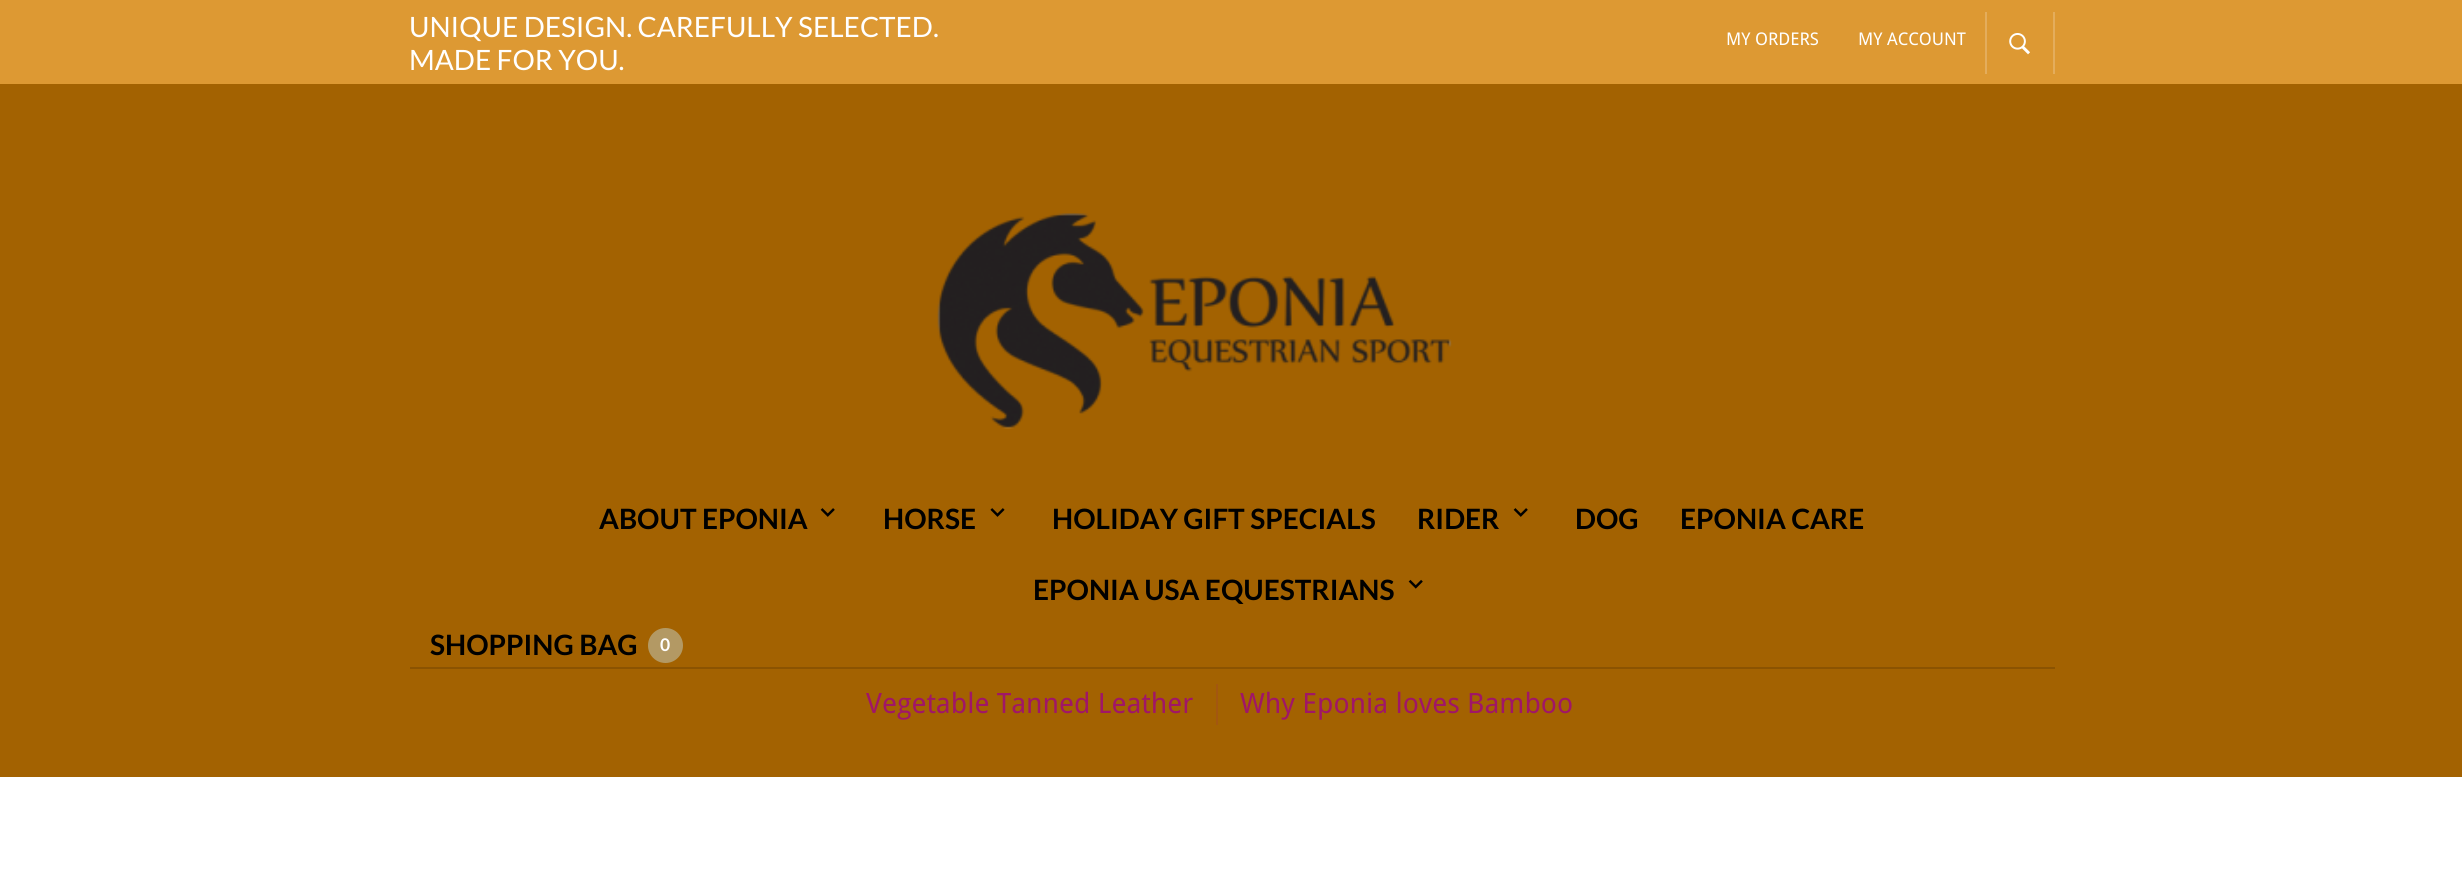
#include <cairo/cairo.h>
#include <math.h>
#include <stddef.h>


static void draw_image(cairo_t *cr, const char *path, double x, double y, double w, double h) {
  cairo_surface_t *image = cairo_image_surface_create_from_png(path);
  cairo_save(cr);
  cairo_set_source_surface(cr, image, x, y);
  cairo_rectangle(cr, x, y, w, h);
  cairo_fill(cr);
  cairo_restore(cr);
  cairo_surface_destroy(image);
}

static void draw(cairo_t *cr) {
  cairo_set_source_rgb(cr, 1, 1, 1);
  cairo_paint(cr);
  cairo_set_source_rgb(cr, 163 / 255.0, 98 / 255.0, 1 / 255.0);
  cairo_rectangle(cr, 0, 84, 2462, 693);
  cairo_fill(cr);
  cairo_set_source_rgb(cr, 221 / 255.0, 153 / 255.0, 51 / 255.0);
  cairo_rectangle(cr, 0, 0, 2462, 84);
  cairo_fill(cr);
  cairo_set_source_rgb(cr, 228 / 255.0, 173 / 255.0, 92 / 255.0);
  cairo_rectangle(cr, 2053, 12, 2, 62);
  cairo_fill(cr);
  cairo_rectangle(cr, 1985, 12, 2, 62);
  cairo_fill(cr);
  draw_image(cr, "images/1.png", 2009, 33, 21, 22);
  draw_image(cr, "images/2.png", 937, 213, 515, 216);
  cairo_set_source_rgb(cr, 139 / 255.0, 83 / 255.0, 1 / 255.0);
  cairo_rectangle(cr, 410, 667, 1645, 2);
  cairo_fill(cr);
  draw_image(cr, "images/3.png", 820, 508, 15, 9);
  draw_image(cr, "images/4.png", 990, 508, 15, 9);
  draw_image(cr, "images/3.png", 1513, 508, 15, 9);
  draw_image(cr, "images/5.png", 1408, 579, 15, 10);
  cairo_set_source_rgb(cr, 179 / 255.0, 153 / 255.0, 100 / 255.0);
  cairo_arc(cr, 665.5, 645.5, 17.5, 0, 2 * M_PI);
  cairo_fill(cr);
  cairo_set_source_rgb(cr, 163 / 255.0, 87 / 255.0, 16 / 255.0);
  cairo_rectangle(cr, 1216, 684, 2, 41);
  cairo_fill(cr);
  cairo_select_font_face(cr, "Lato", CAIRO_FONT_SLANT_NORMAL, CAIRO_FONT_WEIGHT_NORMAL);
  cairo_set_font_size(cr, 28);
  cairo_set_source_rgb(cr, 1, 1, 1);
  cairo_move_to(cr, 409, 37);
  cairo_show_text(cr, "UNIQUE DESIGN. CAREFULLY SELECTED.");
  cairo_move_to(cr, 409, 70);
  cairo_show_text(cr, "MADE FOR YOU.");
  cairo_select_font_face(cr, "Droid Sans", CAIRO_FONT_SLANT_NORMAL, CAIRO_FONT_WEIGHT_NORMAL);
  cairo_set_font_size(cr, 17.5);
  cairo_move_to(cr, 1726, 45);
  cairo_show_text(cr, "MY ORDERS");
  cairo_move_to(cr, 1858, 45);
  cairo_show_text(cr, "MY ACCOUNT");
  cairo_select_font_face(cr, "Lato", CAIRO_FONT_SLANT_NORMAL, CAIRO_FONT_WEIGHT_BOLD);
  cairo_set_font_size(cr, 28);
  cairo_set_source_rgb(cr, 0, 0, 0);
  cairo_move_to(cr, 599, 529);
  cairo_show_text(cr, "ABOUT EPONIA");
  cairo_move_to(cr, 883, 529);
  cairo_show_text(cr, "HORSE");
  cairo_move_to(cr, 1052, 529);
  cairo_show_text(cr, "HOLIDAY GIFT SPECIALS");
  cairo_move_to(cr, 1417, 529);
  cairo_show_text(cr, "RIDER");
  cairo_move_to(cr, 1575, 529);
  cairo_show_text(cr, "DOG");
  cairo_move_to(cr, 1680, 529);
  cairo_show_text(cr, "EPONIA CARE");
  cairo_move_to(cr, 1033, 600);
  cairo_show_text(cr, "EPONIA USA EQUESTRIANS");
  cairo_move_to(cr, 430, 655);
  cairo_show_text(cr, "SHOPPING BAG");
  cairo_set_font_size(cr, 17.5);
  cairo_set_source_rgb(cr, 1, 1, 1);
  cairo_move_to(cr, 660, 651);
  cairo_show_text(cr, "0");
  cairo_select_font_face(cr, "Droid Sans", CAIRO_FONT_SLANT_NORMAL, CAIRO_FONT_WEIGHT_NORMAL);
  cairo_set_font_size(cr, 28);
  cairo_set_source_rgb(cr, 160 / 255.0, 22 / 255.0, 103 / 255.0);
  cairo_move_to(cr, 866, 713);
  cairo_show_text(cr, "Vegetable Tanned Leather");
  cairo_move_to(cr, 1240, 713);
  cairo_show_text(cr, "Why Eponia loves Bamboo");
}

int main(void) {
  cairo_surface_t *surface = cairo_image_surface_create(CAIRO_FORMAT_RGB24, 2462, 891);
  cairo_t *cr = cairo_create(surface);
  cairo_font_options_t *options = cairo_font_options_create();
  cairo_font_options_set_hint_metrics(options, CAIRO_HINT_METRICS_OFF);
  cairo_font_options_set_hint_style(options, CAIRO_HINT_STYLE_NONE);
  cairo_set_font_options(cr, options);
  cairo_set_miter_limit(cr, 4);
  draw(cr);
  cairo_surface_write_to_png(surface, "out.png");
  cairo_font_options_destroy(options);
  cairo_destroy(cr);
  cairo_surface_destroy(surface);
  return 0;
}
